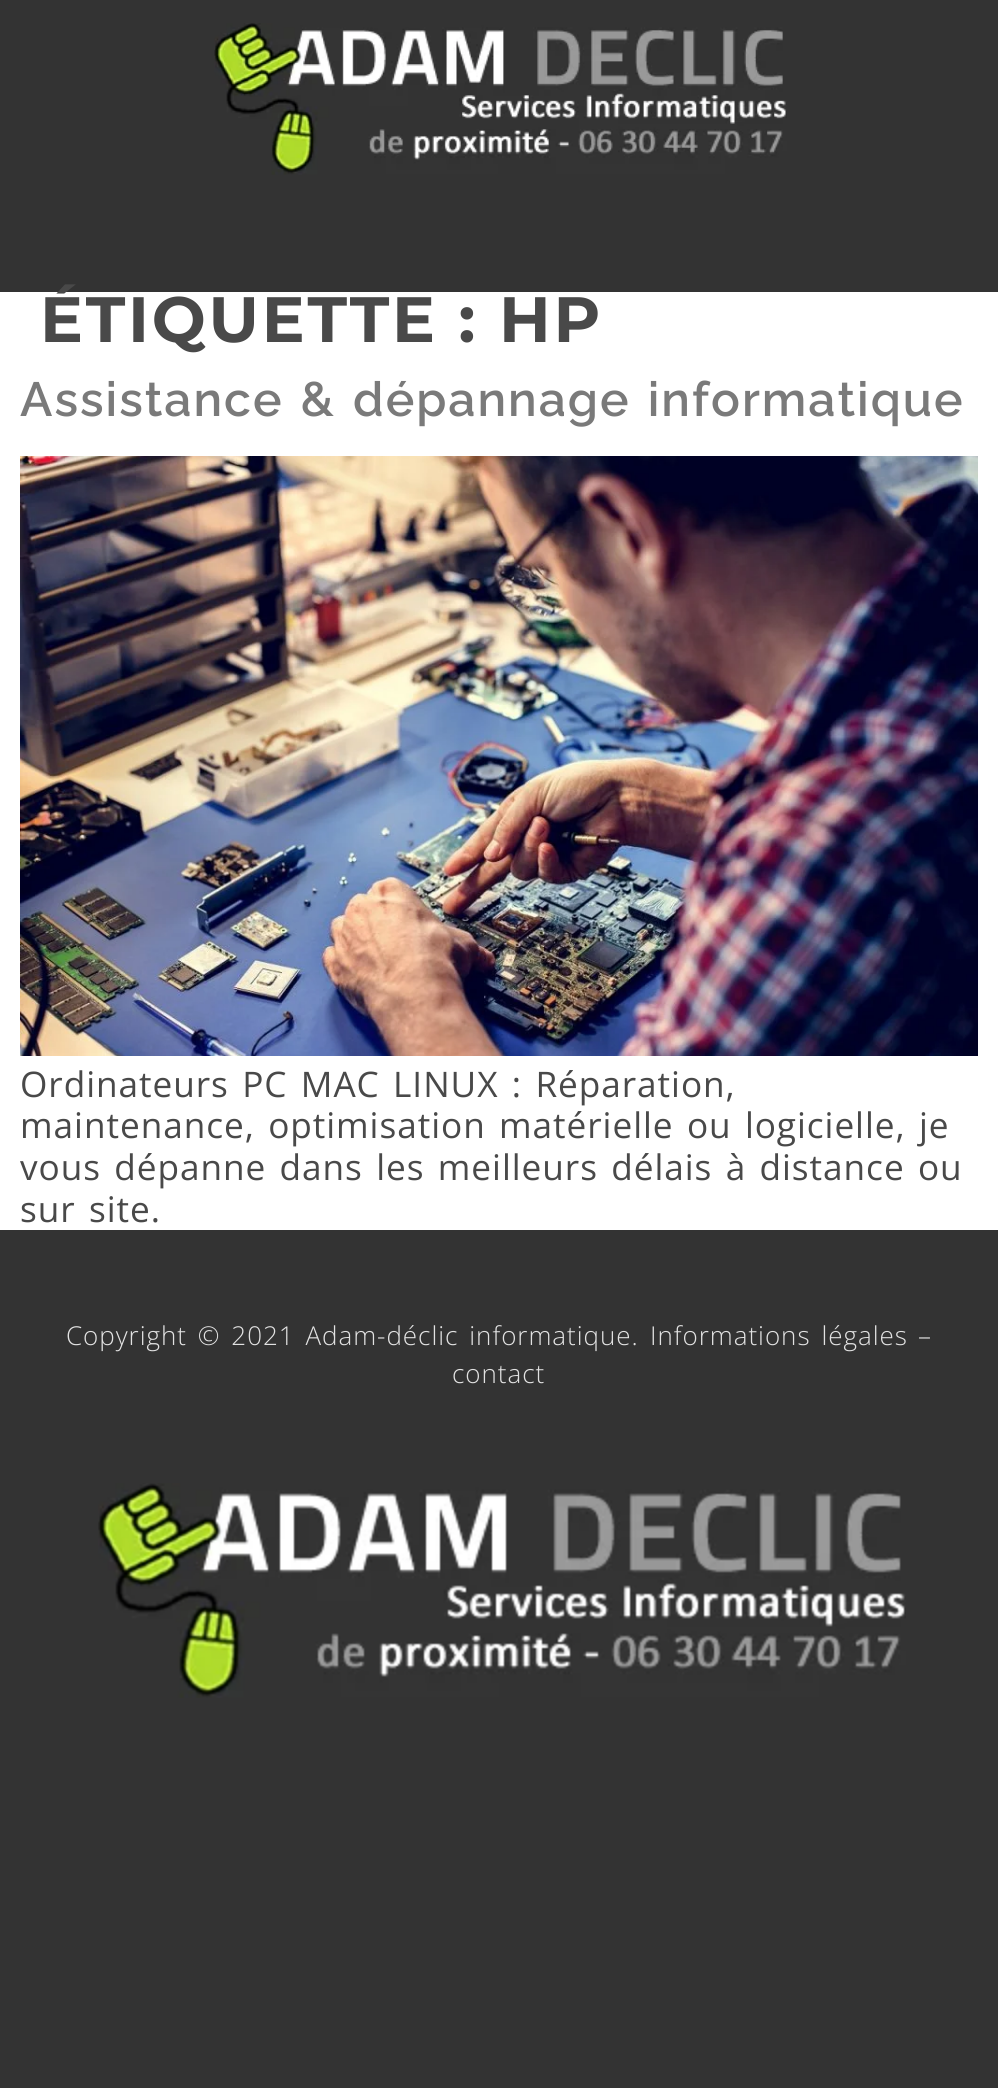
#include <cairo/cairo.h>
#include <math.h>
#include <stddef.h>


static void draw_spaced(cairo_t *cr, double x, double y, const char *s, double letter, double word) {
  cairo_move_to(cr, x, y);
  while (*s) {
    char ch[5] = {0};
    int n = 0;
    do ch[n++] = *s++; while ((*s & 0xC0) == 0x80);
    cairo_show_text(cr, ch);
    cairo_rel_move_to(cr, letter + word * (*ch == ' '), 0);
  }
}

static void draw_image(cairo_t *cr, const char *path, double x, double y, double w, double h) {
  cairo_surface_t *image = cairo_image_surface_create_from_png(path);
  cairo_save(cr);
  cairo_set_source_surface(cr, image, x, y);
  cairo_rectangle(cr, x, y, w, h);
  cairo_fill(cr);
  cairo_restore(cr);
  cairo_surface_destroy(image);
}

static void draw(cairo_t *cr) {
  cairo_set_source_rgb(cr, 51 / 255.0, 51 / 255.0, 51 / 255.0);
  cairo_paint(cr);
  draw_image(cr, "images/1.png", 214, 23, 573, 152);
  cairo_set_source_rgb(cr, 1, 1, 1);
  cairo_rectangle(cr, 0, 292, 998, 938);
  cairo_fill(cr);
  draw_image(cr, "images/2.png", 20, 456, 958, 600);
  draw_image(cr, "images/3.png", 98, 1483, 808, 215);
  cairo_select_font_face(cr, "Montserrat", CAIRO_FONT_SLANT_NORMAL, CAIRO_FONT_WEIGHT_BOLD);
  cairo_set_font_size(cr, 64);
  cairo_set_source_rgb(cr, 73 / 255.0, 73 / 255.0, 73 / 255.0);
  draw_spaced(cr, 40, 342, "ÉTIQUETTE : HP", 2.75, 0);
  cairo_select_font_face(cr, "Raleway SemiBold", CAIRO_FONT_SLANT_NORMAL, CAIRO_FONT_WEIGHT_NORMAL);
  cairo_set_font_size(cr, 48);
  cairo_set_source_rgb(cr, 122 / 255.0, 122 / 255.0, 122 / 255.0);
  draw_spaced(cr, 20, 416, "Assistance & dépannage informatique", 2, 3.25);
  cairo_select_font_face(cr, "Open Sans", CAIRO_FONT_SLANT_NORMAL, CAIRO_FONT_WEIGHT_NORMAL);
  cairo_set_font_size(cr, 35.2);
  cairo_set_source_rgb(cr, 73 / 255.0, 73 / 255.0, 73 / 255.0);
  draw_spaced(cr, 20, 1097, "Ordinateurs PC MAC LINUX : Réparation,", 0.95, 3.25);
  draw_spaced(cr, 20, 1138, "maintenance, optimisation matérielle ou logicielle, je", 0.95, 3.25);
  draw_spaced(cr, 20, 1180, "vous dépanne dans les meilleurs délais à distance ou", 0.95, 3.25);
  draw_spaced(cr, 20, 1222, "sur site.", 0.95, 3.25);
  cairo_select_font_face(cr, "Open Sans Light", CAIRO_FONT_SLANT_NORMAL, CAIRO_FONT_WEIGHT_NORMAL);
  cairo_set_font_size(cr, 26);
  cairo_set_source_rgb(cr, 226 / 255.0, 226 / 255.0, 226 / 255.0);
  draw_spaced(cr, 66, 1345, "Copyright © 2021 Adam-déclic informatique.", 0.95, 3.25);
  draw_spaced(cr, 650, 1345, "Informations légales", 0.95, 3.25);
  draw_spaced(cr, 918, 1345, "–", 0.95, 0);
  draw_spaced(cr, 452, 1383, "contact", 0.95, 0);
}

int main(void) {
  cairo_surface_t *surface = cairo_image_surface_create(CAIRO_FORMAT_RGB24, 998, 2088);
  cairo_t *cr = cairo_create(surface);
  cairo_font_options_t *options = cairo_font_options_create();
  cairo_font_options_set_hint_metrics(options, CAIRO_HINT_METRICS_OFF);
  cairo_font_options_set_hint_style(options, CAIRO_HINT_STYLE_NONE);
  cairo_set_font_options(cr, options);
  cairo_set_miter_limit(cr, 4);
  draw(cr);
  cairo_surface_write_to_png(surface, "out.png");
  cairo_font_options_destroy(options);
  cairo_destroy(cr);
  cairo_surface_destroy(surface);
  return 0;
}
